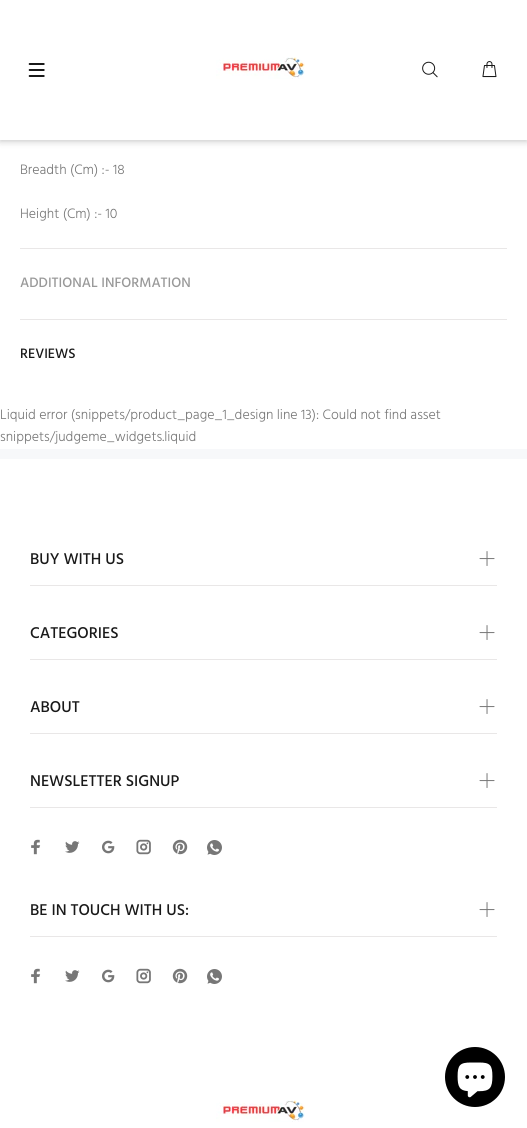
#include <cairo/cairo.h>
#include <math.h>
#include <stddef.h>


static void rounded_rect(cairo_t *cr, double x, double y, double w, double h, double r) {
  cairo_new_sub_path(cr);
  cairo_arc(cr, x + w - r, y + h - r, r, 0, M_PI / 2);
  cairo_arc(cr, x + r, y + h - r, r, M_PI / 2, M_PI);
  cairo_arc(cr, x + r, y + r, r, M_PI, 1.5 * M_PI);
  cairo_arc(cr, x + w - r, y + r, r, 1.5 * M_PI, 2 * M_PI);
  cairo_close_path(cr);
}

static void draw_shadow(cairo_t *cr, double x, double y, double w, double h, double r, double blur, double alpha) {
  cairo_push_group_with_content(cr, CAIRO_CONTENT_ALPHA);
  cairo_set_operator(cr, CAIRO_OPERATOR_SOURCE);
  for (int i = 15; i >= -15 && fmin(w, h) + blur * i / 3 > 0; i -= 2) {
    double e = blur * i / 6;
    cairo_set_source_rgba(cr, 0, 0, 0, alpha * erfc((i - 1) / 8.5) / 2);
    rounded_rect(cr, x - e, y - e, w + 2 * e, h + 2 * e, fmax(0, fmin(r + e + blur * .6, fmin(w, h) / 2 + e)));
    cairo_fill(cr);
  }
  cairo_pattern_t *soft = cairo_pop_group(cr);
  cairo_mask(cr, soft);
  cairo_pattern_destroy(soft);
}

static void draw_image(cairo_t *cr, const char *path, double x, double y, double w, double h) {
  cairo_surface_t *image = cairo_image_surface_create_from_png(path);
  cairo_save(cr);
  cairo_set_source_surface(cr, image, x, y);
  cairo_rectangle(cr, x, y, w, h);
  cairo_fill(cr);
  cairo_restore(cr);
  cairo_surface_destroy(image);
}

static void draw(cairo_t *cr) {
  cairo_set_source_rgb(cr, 1, 1, 1);
  cairo_paint(cr);
  cairo_set_source_rgb(cr, 0, 0, 0);
  draw_shadow(cr, 0, 0, 527, 140, 0, 4, 0.3);
  cairo_set_source_rgb(cr, 1, 1, 1);
  cairo_rectangle(cr, 0, 0, 527, 140);
  cairo_fill(cr);
  draw_image(cr, "images/1.png", 28, 63, 17, 14);
  draw_image(cr, "images/2.png", 216, 57, 89, 22);
  draw_image(cr, "images/3.png", 422, 61, 16, 17);
  draw_image(cr, "images/4.png", 482, 61, 15, 17);
  cairo_set_source_rgb(cr, 233 / 255.0, 231 / 255.0, 231 / 255.0);
  cairo_rectangle(cr, 20, 248, 487, 1);
  cairo_fill(cr);
  cairo_rectangle(cr, 20, 319, 487, 1);
  cairo_fill(cr);
  cairo_set_source_rgb(cr, 247 / 255.0, 248 / 255.0, 250 / 255.0);
  cairo_rectangle(cr, 0, 449, 527, 10);
  cairo_fill(cr);
  cairo_set_source_rgb(cr, 233 / 255.0, 231 / 255.0, 231 / 255.0);
  cairo_rectangle(cr, 30, 585, 467, 1);
  cairo_fill(cr);
  draw_image(cr, "images/5.png", 479, 551, 16, 15);
  cairo_rectangle(cr, 30, 659, 467, 1);
  cairo_fill(cr);
  draw_image(cr, "images/5.png", 479, 625, 16, 15);
  cairo_rectangle(cr, 30, 733, 467, 1);
  cairo_fill(cr);
  draw_image(cr, "images/5.png", 479, 699, 16, 15);
  cairo_rectangle(cr, 30, 807, 467, 1);
  cairo_fill(cr);
  draw_image(cr, "images/5.png", 479, 773, 16, 15);
  draw_image(cr, "images/6.png", 31, 839, 10, 16);
  draw_image(cr, "images/7.png", 65, 841, 15, 12);
  draw_image(cr, "images/8.png", 102, 840, 13, 14);
  draw_image(cr, "images/9.png", 136, 839, 15, 16);
  draw_image(cr, "images/10.png", 172, 839, 16, 16);
  draw_image(cr, "images/11.png", 207, 840, 15, 15);
  cairo_rectangle(cr, 30, 936, 467, 1);
  cairo_fill(cr);
  draw_image(cr, "images/5.png", 479, 902, 16, 15);
  draw_image(cr, "images/6.png", 31, 968, 10, 16);
  draw_image(cr, "images/7.png", 65, 970, 15, 12);
  draw_image(cr, "images/8.png", 102, 969, 13, 14);
  draw_image(cr, "images/9.png", 136, 968, 15, 16);
  draw_image(cr, "images/10.png", 172, 968, 16, 16);
  draw_image(cr, "images/11.png", 207, 969, 15, 15);
  draw_image(cr, "images/2.png", 216, 1100, 89, 22);
  cairo_set_source_rgb(cr, 0, 0, 0);
  cairo_arc(cr, 475, 1077, 30, 0, 2 * M_PI);
  cairo_fill(cr);
  draw_image(cr, "images/12.png", 457, 1062, 36, 36);
  cairo_select_font_face(cr, "Hind Light", CAIRO_FONT_SLANT_NORMAL, CAIRO_FONT_WEIGHT_NORMAL);
  cairo_set_font_size(cr, 14);
  cairo_set_source_rgb(cr, 119 / 255.0, 119 / 255.0, 119 / 255.0);
  cairo_move_to(cr, 20, 174);
  cairo_show_text(cr, "Breadth (Cm) :- 18");
  cairo_move_to(cr, 20, 218);
  cairo_show_text(cr, "Height (Cm) :- 10");
  cairo_select_font_face(cr, "Hind Medium", CAIRO_FONT_SLANT_NORMAL, CAIRO_FONT_WEIGHT_NORMAL);
  cairo_set_source_rgb(cr, 153 / 255.0, 153 / 255.0, 153 / 255.0);
  cairo_move_to(cr, 20, 287);
  cairo_show_text(cr, "ADDITIONAL INFORMATION");
  cairo_set_source_rgb(cr, 25 / 255.0, 25 / 255.0, 25 / 255.0);
  cairo_move_to(cr, 20, 358);
  cairo_show_text(cr, "REVIEWS");
  cairo_select_font_face(cr, "Hind Light", CAIRO_FONT_SLANT_NORMAL, CAIRO_FONT_WEIGHT_NORMAL);
  cairo_set_source_rgb(cr, 119 / 255.0, 119 / 255.0, 119 / 255.0);
  cairo_move_to(cr, 0, 419);
  cairo_show_text(cr, "Liquid error (snippets/product_page_1_design line 13): Could not find asset");
  cairo_move_to(cr, 0, 441);
  cairo_show_text(cr, "snippets/judgeme_widgets.liquid");
  cairo_select_font_face(cr, "Hind Medium", CAIRO_FONT_SLANT_NORMAL, CAIRO_FONT_WEIGHT_NORMAL);
  cairo_set_font_size(cr, 16);
  cairo_set_source_rgb(cr, 25 / 255.0, 25 / 255.0, 25 / 255.0);
  cairo_move_to(cr, 30, 564);
  cairo_show_text(cr, "BUY WITH US");
  cairo_move_to(cr, 30, 638);
  cairo_show_text(cr, "CATEGORIES");
  cairo_move_to(cr, 30, 712);
  cairo_show_text(cr, "ABOUT");
  cairo_move_to(cr, 30, 786);
  cairo_show_text(cr, "NEWSLETTER SIGNUP");
  cairo_move_to(cr, 30, 915);
  cairo_show_text(cr, "BE IN TOUCH WITH US:");
}

int main(void) {
  cairo_surface_t *surface = cairo_image_surface_create(CAIRO_FORMAT_RGB24, 527, 1128);
  cairo_t *cr = cairo_create(surface);
  cairo_font_options_t *options = cairo_font_options_create();
  cairo_font_options_set_hint_metrics(options, CAIRO_HINT_METRICS_OFF);
  cairo_font_options_set_hint_style(options, CAIRO_HINT_STYLE_NONE);
  cairo_set_font_options(cr, options);
  cairo_set_miter_limit(cr, 4);
  draw(cr);
  cairo_surface_write_to_png(surface, "out.png");
  cairo_font_options_destroy(options);
  cairo_destroy(cr);
  cairo_surface_destroy(surface);
  return 0;
}
